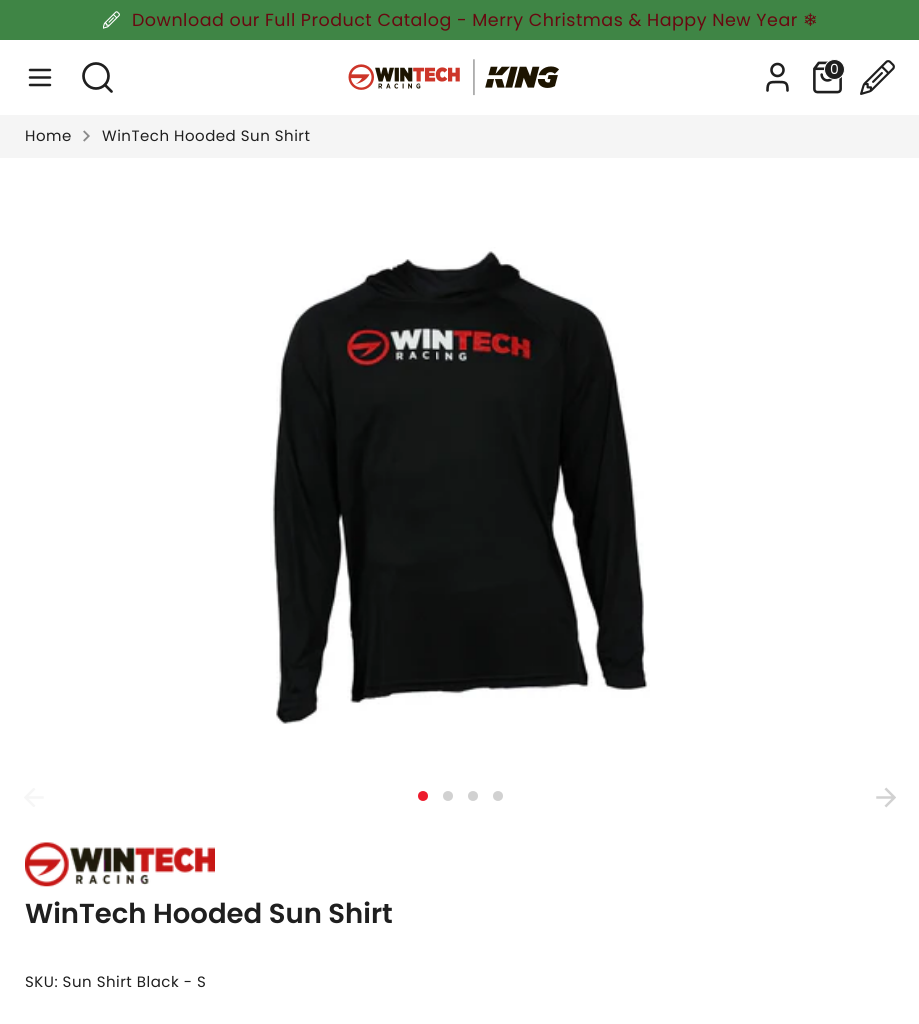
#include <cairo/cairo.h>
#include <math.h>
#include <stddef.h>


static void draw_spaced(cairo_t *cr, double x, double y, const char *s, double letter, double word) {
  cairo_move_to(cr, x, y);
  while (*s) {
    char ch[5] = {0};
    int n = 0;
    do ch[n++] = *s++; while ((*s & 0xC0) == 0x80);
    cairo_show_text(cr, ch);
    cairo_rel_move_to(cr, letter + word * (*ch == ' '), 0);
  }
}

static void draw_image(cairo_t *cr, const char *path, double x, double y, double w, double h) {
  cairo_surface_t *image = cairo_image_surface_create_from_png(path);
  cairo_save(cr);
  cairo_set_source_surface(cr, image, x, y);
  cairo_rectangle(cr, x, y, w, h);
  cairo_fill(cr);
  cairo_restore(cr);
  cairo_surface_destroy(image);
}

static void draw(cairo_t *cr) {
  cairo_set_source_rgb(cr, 1, 1, 1);
  cairo_paint(cr);
  cairo_set_source_rgb(cr, 63 / 255.0, 133 / 255.0, 69 / 255.0);
  cairo_rectangle(cr, 0, 0, 919, 40);
  cairo_fill(cr);
  draw_image(cr, "images/1.png", 103, 11, 17, 18);
  cairo_new_path(cr);
  cairo_move_to(cr, 30, 77.5);
  cairo_line_to(cr, 50, 77.5);
  cairo_move_to(cr, 30, 70);
  cairo_line_to(cr, 50, 70);
  cairo_move_to(cr, 30, 85);
  cairo_line_to(cr, 50, 85);
  cairo_set_source_rgb(cr, 31 / 255.0, 31 / 255.0, 31 / 255.0);
  cairo_set_line_width(cr, 2.5);
  cairo_set_line_cap(cr, CAIRO_LINE_CAP_ROUND);
  cairo_set_line_join(cr, CAIRO_LINE_JOIN_ROUND);
  cairo_stroke(cr);
  cairo_arc(cr, 96, 76, 12.5, 0, 2 * M_PI);
  cairo_set_line_width(cr, 2.7);
  cairo_set_line_cap(cr, CAIRO_LINE_CAP_BUTT);
  cairo_set_line_join(cr, CAIRO_LINE_JOIN_MITER);
  cairo_stroke(cr);
  cairo_new_path(cr);
  cairo_move_to(cr, 111.5, 91.5);
  cairo_line_to(cr, 105, 85);
  cairo_set_line_cap(cr, CAIRO_LINE_CAP_ROUND);
  cairo_set_line_join(cr, CAIRO_LINE_JOIN_ROUND);
  cairo_stroke(cr);
  draw_image(cr, "images/2.png", 348, 59, 211, 37);
  cairo_new_path(cr);
  cairo_move_to(cr, 787.5, 90.5);
  cairo_curve_to(cr, 787.5, 82, 785.5, 82, 777.5, 82);
  cairo_curve_to(cr, 769.5, 82, 767.5, 82, 767.5, 90.5);
  cairo_set_line_width(cr, 2.6);
  cairo_stroke(cr);
  cairo_arc(cr, 777.5, 70, 6, 0, 2 * M_PI);
  cairo_set_line_cap(cr, CAIRO_LINE_CAP_BUTT);
  cairo_set_line_join(cr, CAIRO_LINE_JOIN_MITER);
  cairo_stroke(cr);
  draw_image(cr, "images/3.png", 813, 61, 29, 33);
  cairo_arc(cr, 834.5, 69.5, 10, 0, 2 * M_PI);
  cairo_fill_preserve(cr);
  cairo_set_source_rgb(cr, 1, 1, 1);
  cairo_set_line_width(cr, 1);
  cairo_stroke(cr);
  draw_image(cr, "images/4.png", 860, 60, 35, 35);
  cairo_set_source_rgb(cr, 245 / 255.0, 245 / 255.0, 245 / 255.0);
  cairo_rectangle(cr, 0, 115, 919, 43);
  cairo_fill(cr);
  draw_image(cr, "images/5.png", 83, 130, 7, 12);
  draw_image(cr, "images/6.png", 270, 247, 380, 477);
  draw_image(cr, "images/7.png", 24, 788, 20, 19);
  draw_image(cr, "images/8.png", 876, 787, 20, 21);
  cairo_set_source_rgb(cr, 237 / 255.0, 28 / 255.0, 45 / 255.0);
  cairo_arc(cr, 423, 796, 3.5, 0, 2 * M_PI);
  cairo_fill_preserve(cr);
  cairo_set_line_width(cr, 3);
  cairo_stroke(cr);
  cairo_set_source_rgb(cr, 209 / 255.0, 209 / 255.0, 209 / 255.0);
  cairo_arc(cr, 448, 796, 3.5, 0, 2 * M_PI);
  cairo_fill_preserve(cr);
  cairo_stroke(cr);
  cairo_arc(cr, 473, 796, 3.5, 0, 2 * M_PI);
  cairo_fill_preserve(cr);
  cairo_stroke(cr);
  cairo_arc(cr, 498, 796, 3.5, 0, 2 * M_PI);
  cairo_fill_preserve(cr);
  cairo_stroke(cr);
  draw_image(cr, "images/9.png", 25, 842, 190, 45);
  cairo_select_font_face(cr, "Poppins", CAIRO_FONT_SLANT_NORMAL, CAIRO_FONT_WEIGHT_NORMAL);
  cairo_set_font_size(cr, 17.5);
  cairo_set_source_rgb(cr, 104 / 255.0, 8 / 255.0, 16 / 255.0);
  draw_spaced(cr, 132, 26, "Download our Full Product Catalog - Merry Christmas & Happy New Year", 0.5, 0);
  cairo_select_font_face(cr, "DejaVu Sans", CAIRO_FONT_SLANT_NORMAL, CAIRO_FONT_WEIGHT_NORMAL);
  draw_spaced(cr, 803, 26, "❄", 0.5, 0);
  cairo_select_font_face(cr, "Poppins", CAIRO_FONT_SLANT_NORMAL, CAIRO_FONT_WEIGHT_NORMAL);
  cairo_set_font_size(cr, 14);
  cairo_set_source_rgb(cr, 1, 1, 1);
  cairo_move_to(cr, 830, 74);
  cairo_show_text(cr, "0");
  cairo_set_font_size(cr, 15);
  cairo_set_source_rgb(cr, 31 / 255.0, 31 / 255.0, 31 / 255.0);
  draw_spaced(cr, 25, 141, "Home", 0.5, 0);
  draw_spaced(cr, 102, 141, "WinTech Hooded Sun Shirt", 0.5, 0);
  cairo_select_font_face(cr, "Poppins SemiBold", CAIRO_FONT_SLANT_NORMAL, CAIRO_FONT_WEIGHT_NORMAL);
  cairo_set_font_size(cr, 27.5);
  cairo_move_to(cr, 25, 923);
  cairo_show_text(cr, "WinTech Hooded Sun Shirt");
  cairo_select_font_face(cr, "Poppins", CAIRO_FONT_SLANT_NORMAL, CAIRO_FONT_WEIGHT_NORMAL);
  cairo_set_font_size(cr, 15);
  draw_spaced(cr, 25, 987, "SKU: Sun Shirt Black - S", 0.5, 0);
}

int main(void) {
  cairo_surface_t *surface = cairo_image_surface_create(CAIRO_FORMAT_RGB24, 919, 1024);
  cairo_t *cr = cairo_create(surface);
  cairo_font_options_t *options = cairo_font_options_create();
  cairo_font_options_set_hint_metrics(options, CAIRO_HINT_METRICS_OFF);
  cairo_font_options_set_hint_style(options, CAIRO_HINT_STYLE_NONE);
  cairo_set_font_options(cr, options);
  cairo_set_miter_limit(cr, 4);
  draw(cr);
  cairo_surface_write_to_png(surface, "out.png");
  cairo_font_options_destroy(options);
  cairo_destroy(cr);
  cairo_surface_destroy(surface);
  return 0;
}
